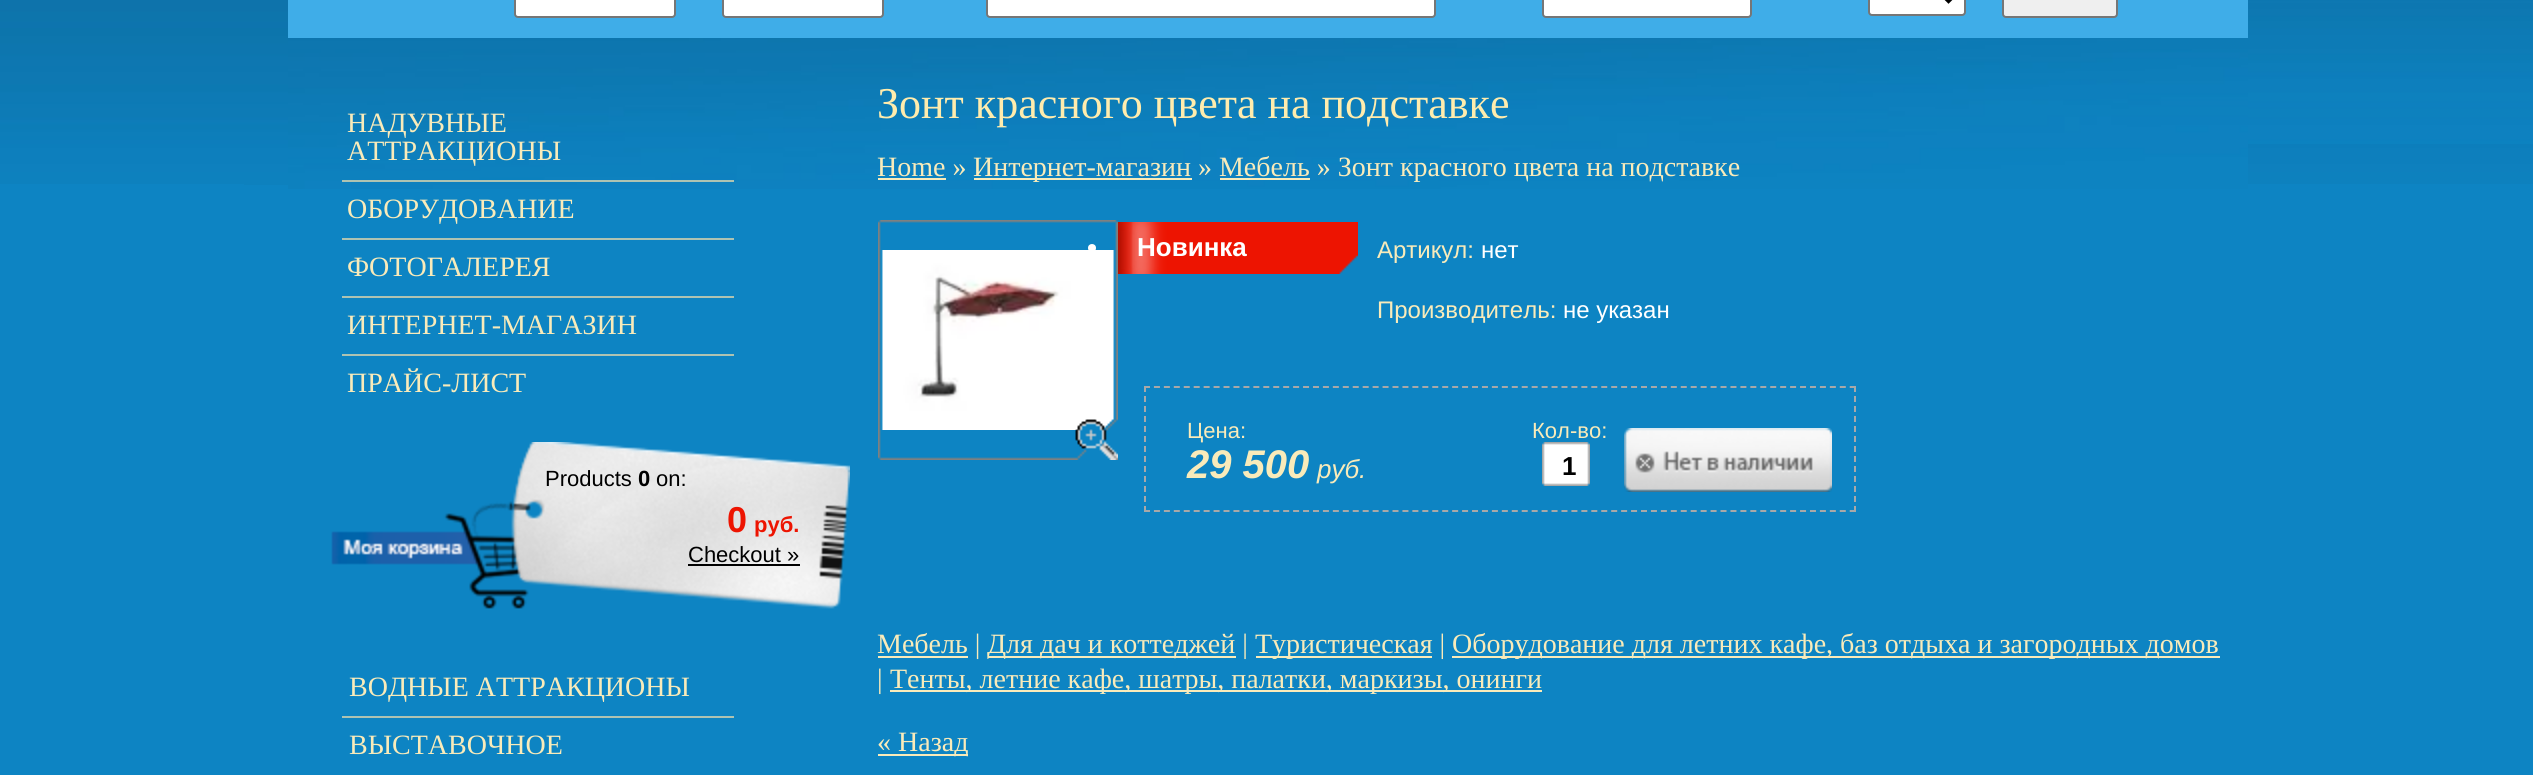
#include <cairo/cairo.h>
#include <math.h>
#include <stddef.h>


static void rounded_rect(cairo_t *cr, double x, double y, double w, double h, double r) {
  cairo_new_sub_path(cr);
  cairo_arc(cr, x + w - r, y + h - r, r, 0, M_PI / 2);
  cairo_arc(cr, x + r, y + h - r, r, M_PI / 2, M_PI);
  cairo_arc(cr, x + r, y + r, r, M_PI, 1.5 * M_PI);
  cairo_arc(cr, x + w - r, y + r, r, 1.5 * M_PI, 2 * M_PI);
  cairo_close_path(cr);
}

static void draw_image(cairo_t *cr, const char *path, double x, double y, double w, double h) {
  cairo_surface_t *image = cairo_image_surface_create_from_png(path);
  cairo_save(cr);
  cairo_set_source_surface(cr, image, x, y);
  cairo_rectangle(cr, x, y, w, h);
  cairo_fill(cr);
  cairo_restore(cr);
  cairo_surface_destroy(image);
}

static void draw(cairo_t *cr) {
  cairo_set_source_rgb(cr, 13 / 255.0, 132 / 255.0, 195 / 255.0);
  cairo_paint(cr);
  draw_image(cr, "images/1.png", 0, 0, 2533, 184);
  draw_image(cr, "images/2.png", 2248, 0, 285, 144);
  cairo_set_source_rgb(cr, 13 / 255.0, 129 / 255.0, 190 / 255.0);
  cairo_rectangle(cr, 244, 184, 44, 1);
  cairo_fill(cr);
  draw_image(cr, "images/3.png", 288, 38, 1960, 151);
  cairo_set_source_rgb(cr, 63 / 255.0, 173 / 255.0, 232 / 255.0);
  cairo_rectangle(cr, 288, 0, 1960, 38);
  cairo_fill(cr);
  cairo_set_source_rgb(cr, 1, 1, 1);
  rounded_rect(cr, 515, -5, 160, 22, 3);
  cairo_fill_preserve(cr);
  cairo_set_source_rgb(cr, 118 / 255.0, 118 / 255.0, 118 / 255.0);
  cairo_stroke(cr);
  cairo_set_source_rgb(cr, 1, 1, 1);
  rounded_rect(cr, 723, -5, 160, 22, 3);
  cairo_fill_preserve(cr);
  cairo_set_source_rgb(cr, 118 / 255.0, 118 / 255.0, 118 / 255.0);
  cairo_stroke(cr);
  cairo_set_source_rgb(cr, 1, 1, 1);
  rounded_rect(cr, 987, -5, 448, 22, 3);
  cairo_fill_preserve(cr);
  cairo_set_source_rgb(cr, 118 / 255.0, 118 / 255.0, 118 / 255.0);
  cairo_stroke(cr);
  cairo_set_source_rgb(cr, 1, 1, 1);
  rounded_rect(cr, 1543, -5, 208, 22, 3);
  cairo_fill_preserve(cr);
  cairo_set_source_rgb(cr, 118 / 255.0, 118 / 255.0, 118 / 255.0);
  cairo_stroke(cr);
  cairo_set_source_rgb(cr, 1, 1, 1);
  rounded_rect(cr, 1869, -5, 96, 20, 3);
  cairo_fill_preserve(cr);
  cairo_set_source_rgb(cr, 118 / 255.0, 118 / 255.0, 118 / 255.0);
  cairo_stroke(cr);
  cairo_new_path(cr);
  cairo_move_to(cr, 1940.5, -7);
  cairo_line_to(cr, 1948.5, 1);
  cairo_line_to(cr, 1956.5, -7);
  cairo_set_source_rgb(cr, 0, 0, 0);
  cairo_set_line_width(cr, 4);
  cairo_stroke(cr);
  cairo_set_source_rgb(cr, 239 / 255.0, 239 / 255.0, 239 / 255.0);
  rounded_rect(cr, 2003, -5, 114, 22, 3);
  cairo_fill_preserve(cr);
  cairo_set_source_rgb(cr, 118 / 255.0, 118 / 255.0, 118 / 255.0);
  cairo_set_line_width(cr, 2);
  cairo_stroke(cr);
  cairo_set_source_rgb(cr, 174 / 255.0, 195 / 255.0, 178 / 255.0);
  cairo_rectangle(cr, 342, 180, 392, 2);
  cairo_fill(cr);
  cairo_rectangle(cr, 342, 238, 392, 2);
  cairo_fill(cr);
  cairo_rectangle(cr, 342, 296, 392, 2);
  cairo_fill(cr);
  cairo_rectangle(cr, 342, 354, 392, 2);
  cairo_fill(cr);
  draw_image(cr, "images/4.png", 331, 442, 519, 167);
  cairo_set_source_rgb(cr, 0, 0, 0);
  cairo_rectangle(cr, 688, 564, 112, 2);
  cairo_fill(cr);
  cairo_set_source_rgb(cr, 174 / 255.0, 195 / 255.0, 178 / 255.0);
  cairo_rectangle(cr, 342, 716, 392, 2);
  cairo_fill(cr);
  cairo_set_source_rgb(cr, 249 / 255.0, 235 / 255.0, 186 / 255.0);
  cairo_rectangle(cr, 878, 178, 68, 2);
  cairo_fill(cr);
  cairo_rectangle(cr, 974, 178, 218, 2);
  cairo_fill(cr);
  cairo_rectangle(cr, 1220, 178, 90, 2);
  cairo_fill(cr);
  draw_image(cr, "images/5.png", 878, 220, 240, 240);
  draw_image(cr, "images/6.png", 881, 250, 234, 199);
  cairo_set_source_rgb(cr, 237 / 255.0, 20 / 255.0, 1 / 255.0);
  cairo_rectangle(cr, 1118, 222, 240, 52);
  cairo_fill(cr);
  draw_image(cr, "images/7.png", 1118, 222, 240, 52);
  cairo_set_source_rgb(cr, 1, 1, 1);
  cairo_arc(cr, 1092, 248, 4, 0, 2 * M_PI);
  cairo_fill(cr);
  cairo_new_path(cr);
  cairo_move_to(cr, 1144, 387);
  cairo_line_to(cr, 1856, 387);
  cairo_set_source_rgb(cr, 168 / 255.0, 168 / 255.0, 168 / 255.0);
  cairo_set_dash(cr, (double[]){6, 3.94}, 2, 0);
  cairo_stroke(cr);
  cairo_new_path(cr);
  cairo_move_to(cr, 1855, 386);
  cairo_line_to(cr, 1855, 512);
  cairo_set_dash(cr, (double[]){6, 4}, 2, 0);
  cairo_stroke(cr);
  cairo_new_path(cr);
  cairo_move_to(cr, 1144, 511);
  cairo_line_to(cr, 1856, 511);
  cairo_set_dash(cr, (double[]){6, 3.94}, 2, 0);
  cairo_stroke(cr);
  cairo_new_path(cr);
  cairo_move_to(cr, 1145, 386);
  cairo_line_to(cr, 1145, 512);
  cairo_set_dash(cr, (double[]){6, 4}, 2, 0);
  cairo_stroke(cr);
  draw_image(cr, "images/8.png", 1542, 442, 48, 44);
  draw_image(cr, "images/9.png", 1624, 428, 208, 64);
  cairo_set_source_rgb(cr, 249 / 255.0, 235 / 255.0, 186 / 255.0);
  cairo_rectangle(cr, 878, 656, 90, 2);
  cairo_fill(cr);
  cairo_rectangle(cr, 988, 656, 248, 2);
  cairo_fill(cr);
  cairo_rectangle(cr, 1256, 656, 176, 2);
  cairo_fill(cr);
  cairo_rectangle(cr, 1452, 656, 768, 2);
  cairo_fill(cr);
  cairo_rectangle(cr, 890, 690, 652, 2);
  cairo_fill(cr);
  cairo_rectangle(cr, 878, 754, 90, 2);
  cairo_fill(cr);
  cairo_select_font_face(cr, "Liberation Serif", CAIRO_FONT_SLANT_NORMAL, CAIRO_FONT_WEIGHT_NORMAL);
  cairo_set_font_size(cr, 28);
  cairo_move_to(cr, 347, 132);
  cairo_show_text(cr, "НАДУВНЫЕ");
  cairo_move_to(cr, 347, 160);
  cairo_show_text(cr, "АТТРАКЦИОНЫ");
  cairo_move_to(cr, 347, 218);
  cairo_show_text(cr, "ОБОРУДОВАНИЕ");
  cairo_move_to(cr, 347, 276);
  cairo_show_text(cr, "ФОТОГАЛЕРЕЯ");
  cairo_move_to(cr, 347, 334);
  cairo_show_text(cr, "ИНТЕРНЕТ-МАГАЗИН");
  cairo_move_to(cr, 347, 392);
  cairo_show_text(cr, "ПРАЙС-ЛИСТ");
  cairo_select_font_face(cr, "Liberation Sans", CAIRO_FONT_SLANT_NORMAL, CAIRO_FONT_WEIGHT_NORMAL);
  cairo_set_font_size(cr, 22);
  cairo_set_source_rgb(cr, 0, 0, 0);
  cairo_move_to(cr, 545, 486);
  cairo_show_text(cr, "Products");
  cairo_select_font_face(cr, "Liberation Sans", CAIRO_FONT_SLANT_NORMAL, CAIRO_FONT_WEIGHT_BOLD);
  cairo_move_to(cr, 638, 486);
  cairo_show_text(cr, "0");
  cairo_select_font_face(cr, "Liberation Sans", CAIRO_FONT_SLANT_NORMAL, CAIRO_FONT_WEIGHT_NORMAL);
  cairo_move_to(cr, 656, 486);
  cairo_show_text(cr, "on:");
  cairo_select_font_face(cr, "Liberation Sans", CAIRO_FONT_SLANT_NORMAL, CAIRO_FONT_WEIGHT_BOLD);
  cairo_set_font_size(cr, 36);
  cairo_set_source_rgb(cr, 237 / 255.0, 20 / 255.0, 1 / 255.0);
  cairo_move_to(cr, 727, 532);
  cairo_show_text(cr, "0");
  cairo_set_font_size(cr, 22);
  cairo_move_to(cr, 754, 532);
  cairo_show_text(cr, "руб.");
  cairo_select_font_face(cr, "Liberation Sans", CAIRO_FONT_SLANT_NORMAL, CAIRO_FONT_WEIGHT_NORMAL);
  cairo_set_source_rgb(cr, 0, 0, 0);
  cairo_move_to(cr, 688, 562);
  cairo_show_text(cr, "Checkout »");
  cairo_select_font_face(cr, "Liberation Serif", CAIRO_FONT_SLANT_NORMAL, CAIRO_FONT_WEIGHT_NORMAL);
  cairo_set_font_size(cr, 28);
  cairo_set_source_rgb(cr, 249 / 255.0, 235 / 255.0, 186 / 255.0);
  cairo_move_to(cr, 349, 696);
  cairo_show_text(cr, "ВОДНЫЕ АТТРАКЦИОНЫ");
  cairo_move_to(cr, 349, 754);
  cairo_show_text(cr, "ВЫСТАВОЧНОЕ");
  cairo_set_font_size(cr, 44);
  cairo_set_source_rgb(cr, 1, 236 / 255.0, 173 / 255.0);
  cairo_move_to(cr, 877, 118);
  cairo_show_text(cr, "Зонт красного цвета на подставке");
  cairo_set_font_size(cr, 28);
  cairo_set_source_rgb(cr, 249 / 255.0, 235 / 255.0, 186 / 255.0);
  cairo_move_to(cr, 877, 176);
  cairo_show_text(cr, "Home »");
  cairo_move_to(cr, 973, 176);
  cairo_show_text(cr, "Интернет-магазин » Мебель » Зонт красного цвета на подставке");
  cairo_select_font_face(cr, "Liberation Sans", CAIRO_FONT_SLANT_NORMAL, CAIRO_FONT_WEIGHT_BOLD);
  cairo_set_font_size(cr, 26);
  cairo_set_source_rgb(cr, 1, 1, 1);
  cairo_move_to(cr, 1137, 256);
  cairo_show_text(cr, "Новинка");
  cairo_select_font_face(cr, "Liberation Sans", CAIRO_FONT_SLANT_NORMAL, CAIRO_FONT_WEIGHT_NORMAL);
  cairo_set_font_size(cr, 24);
  cairo_set_source_rgb(cr, 249 / 255.0, 235 / 255.0, 186 / 255.0);
  cairo_move_to(cr, 1377, 258);
  cairo_show_text(cr, "Артикул:");
  cairo_set_source_rgb(cr, 1, 1, 1);
  cairo_move_to(cr, 1481, 258);
  cairo_show_text(cr, "нет");
  cairo_set_source_rgb(cr, 249 / 255.0, 235 / 255.0, 186 / 255.0);
  cairo_move_to(cr, 1377, 318);
  cairo_show_text(cr, "Производитель:");
  cairo_set_source_rgb(cr, 1, 1, 1);
  cairo_move_to(cr, 1563, 318);
  cairo_show_text(cr, "не указан");
  cairo_set_font_size(cr, 22);
  cairo_set_source_rgb(cr, 249 / 255.0, 235 / 255.0, 186 / 255.0);
  cairo_move_to(cr, 1187, 438);
  cairo_show_text(cr, "Цена:");
  cairo_select_font_face(cr, "Liberation Sans", CAIRO_FONT_SLANT_ITALIC, CAIRO_FONT_WEIGHT_BOLD);
  cairo_set_font_size(cr, 40);
  cairo_move_to(cr, 1187, 478);
  cairo_show_text(cr, "29 500");
  cairo_select_font_face(cr, "Liberation Sans", CAIRO_FONT_SLANT_ITALIC, CAIRO_FONT_WEIGHT_NORMAL);
  cairo_set_font_size(cr, 26);
  cairo_move_to(cr, 1317, 478);
  cairo_show_text(cr, "руб.");
  cairo_select_font_face(cr, "Liberation Sans", CAIRO_FONT_SLANT_NORMAL, CAIRO_FONT_WEIGHT_NORMAL);
  cairo_set_font_size(cr, 22);
  cairo_move_to(cr, 1532, 438);
  cairo_show_text(cr, "Кол-во:");
  cairo_select_font_face(cr, "Liberation Sans", CAIRO_FONT_SLANT_NORMAL, CAIRO_FONT_WEIGHT_BOLD);
  cairo_set_font_size(cr, 26);
  cairo_set_source_rgb(cr, 0, 0, 0);
  cairo_move_to(cr, 1562, 475);
  cairo_show_text(cr, "1");
  cairo_select_font_face(cr, "Liberation Serif", CAIRO_FONT_SLANT_NORMAL, CAIRO_FONT_WEIGHT_NORMAL);
  cairo_set_font_size(cr, 28);
  cairo_set_source_rgb(cr, 249 / 255.0, 235 / 255.0, 186 / 255.0);
  cairo_move_to(cr, 877, 653);
  cairo_show_text(cr, "Мебель |");
  cairo_move_to(cr, 987, 653);
  cairo_show_text(cr, "Для дач и коттеджей |");
  cairo_move_to(cr, 1255, 653);
  cairo_show_text(cr, "Туристическая |");
  cairo_move_to(cr, 1452, 653);
  cairo_show_text(cr, "Оборудование для летних кафе, баз отдыха и загородных домов");
  cairo_move_to(cr, 877, 688);
  cairo_show_text(cr, "|");
  cairo_move_to(cr, 890, 688);
  cairo_show_text(cr, "Тенты, летние кафе, шатры, палатки, маркизы, онинги");
  cairo_move_to(cr, 877, 751);
  cairo_show_text(cr, "« Назад");
}

int main(void) {
  cairo_surface_t *surface = cairo_image_surface_create(CAIRO_FORMAT_RGB24, 2533, 775);
  cairo_t *cr = cairo_create(surface);
  cairo_font_options_t *options = cairo_font_options_create();
  cairo_font_options_set_hint_metrics(options, CAIRO_HINT_METRICS_OFF);
  cairo_font_options_set_hint_style(options, CAIRO_HINT_STYLE_NONE);
  cairo_set_font_options(cr, options);
  cairo_set_miter_limit(cr, 4);
  draw(cr);
  cairo_surface_write_to_png(surface, "out.png");
  cairo_font_options_destroy(options);
  cairo_destroy(cr);
  cairo_surface_destroy(surface);
  return 0;
}
